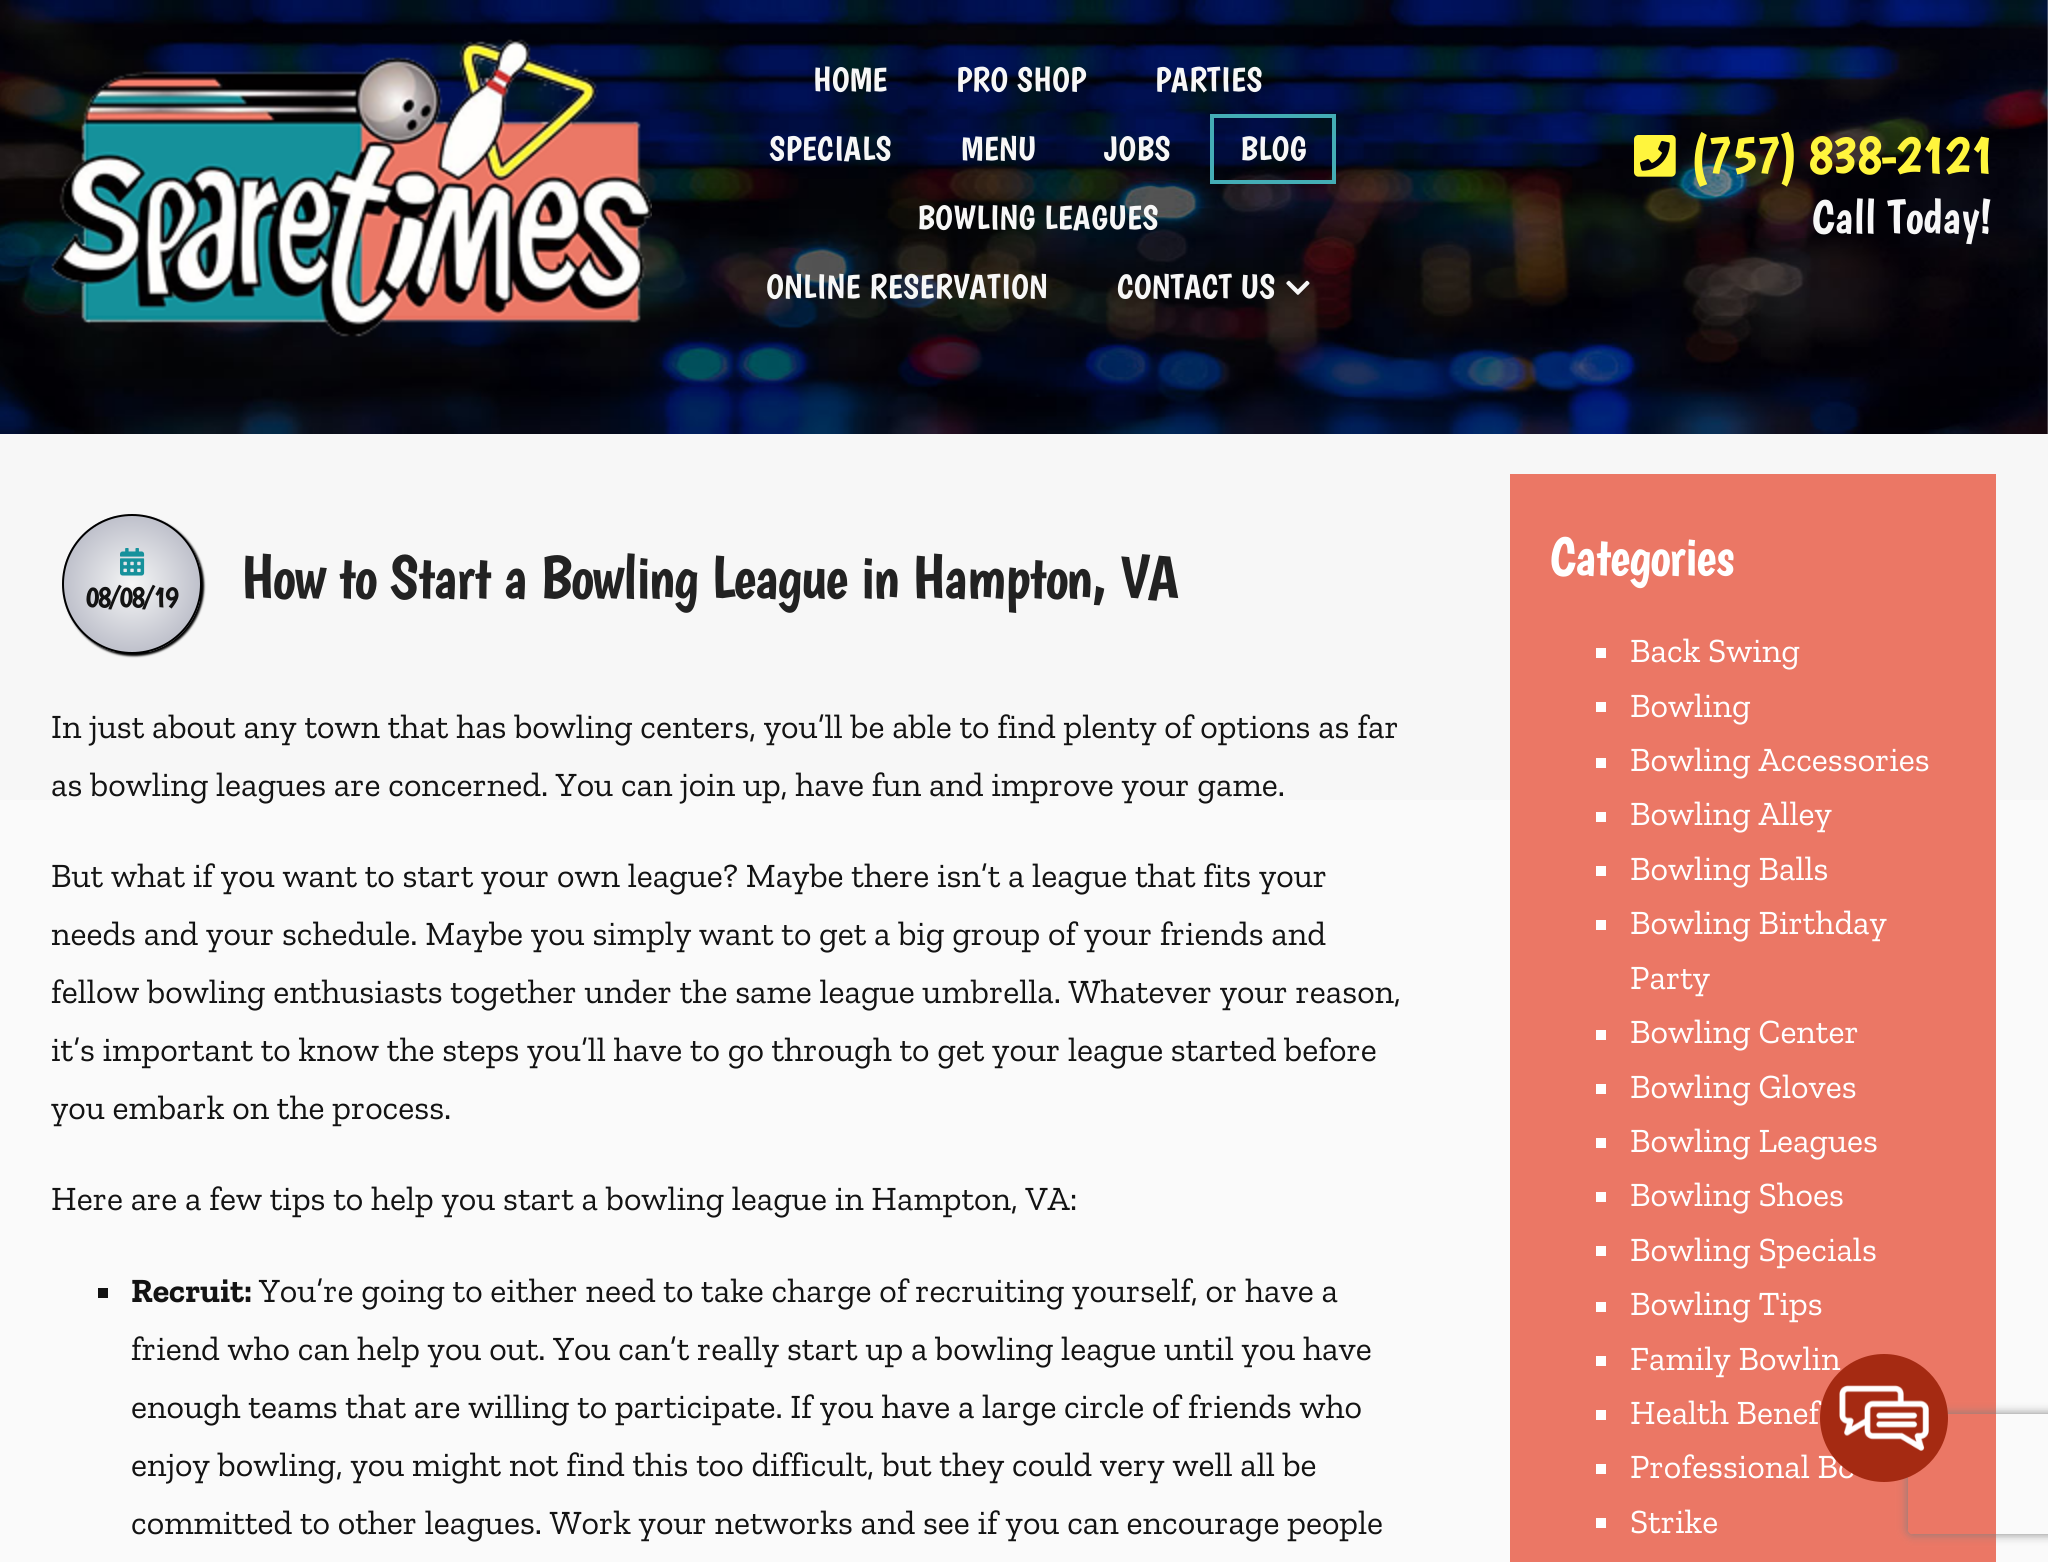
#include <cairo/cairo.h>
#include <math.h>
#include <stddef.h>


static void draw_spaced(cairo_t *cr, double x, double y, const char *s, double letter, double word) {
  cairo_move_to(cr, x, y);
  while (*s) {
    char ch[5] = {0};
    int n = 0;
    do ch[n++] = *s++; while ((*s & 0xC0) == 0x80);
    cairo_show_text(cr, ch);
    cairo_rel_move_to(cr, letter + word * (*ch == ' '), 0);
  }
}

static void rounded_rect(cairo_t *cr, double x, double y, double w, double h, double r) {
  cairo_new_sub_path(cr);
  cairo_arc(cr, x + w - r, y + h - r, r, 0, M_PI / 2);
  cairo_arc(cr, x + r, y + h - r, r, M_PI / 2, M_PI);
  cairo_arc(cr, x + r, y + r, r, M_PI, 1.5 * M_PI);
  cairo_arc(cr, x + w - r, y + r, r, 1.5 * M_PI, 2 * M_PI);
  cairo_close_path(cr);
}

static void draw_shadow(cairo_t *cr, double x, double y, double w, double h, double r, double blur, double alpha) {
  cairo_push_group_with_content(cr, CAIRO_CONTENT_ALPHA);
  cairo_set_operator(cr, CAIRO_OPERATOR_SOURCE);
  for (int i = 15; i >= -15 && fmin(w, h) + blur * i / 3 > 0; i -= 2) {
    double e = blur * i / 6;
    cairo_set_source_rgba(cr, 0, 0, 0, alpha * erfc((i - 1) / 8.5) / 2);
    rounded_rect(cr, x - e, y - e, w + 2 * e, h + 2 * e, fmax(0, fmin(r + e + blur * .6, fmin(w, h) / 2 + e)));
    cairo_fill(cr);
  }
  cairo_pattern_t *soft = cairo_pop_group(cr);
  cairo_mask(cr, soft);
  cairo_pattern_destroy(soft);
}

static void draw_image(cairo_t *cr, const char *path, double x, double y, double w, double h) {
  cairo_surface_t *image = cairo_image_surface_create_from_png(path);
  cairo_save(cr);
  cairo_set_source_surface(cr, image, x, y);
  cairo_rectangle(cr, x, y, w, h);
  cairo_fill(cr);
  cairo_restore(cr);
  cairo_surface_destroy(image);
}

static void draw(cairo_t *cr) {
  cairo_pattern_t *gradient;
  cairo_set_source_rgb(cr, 250 / 255.0, 250 / 255.0, 250 / 255.0);
  cairo_paint(cr);
  cairo_set_source_rgb(cr, 247 / 255.0, 247 / 255.0, 247 / 255.0);
  cairo_rectangle(cr, 0, 0, 2048, 800);
  cairo_fill(cr);
  draw_image(cr, "images/1.png", 0, 0, 2048, 434);
  draw_image(cr, "images/2.png", 51, 39, 601, 298);
  cairo_rectangle(cr, 1212, 116, 122, 66);
  cairo_set_source_rgb(cr, 68 / 255.0, 173 / 255.0, 181 / 255.0);
  cairo_set_line_width(cr, 4);
  cairo_stroke(cr);
  draw_image(cr, "images/3.png", 1286, 280, 24, 15);
  draw_image(cr, "images/4.png", 1634, 135, 42, 42);
  cairo_set_source_rgb(cr, 0, 0, 0);
  draw_shadow(cr, 64, 516, 140, 140, 70, 1, 1);
  cairo_save(cr);
  rounded_rect(cr, 62, 514, 140, 140, 70);
  cairo_clip(cr);
  gradient = cairo_pattern_create_radial(132, 584, 0, 132, 584, 96);
  cairo_pattern_add_color_stop_rgba(gradient, 0, 245 / 255.0, 246 / 255.0, 246 / 255.0, 1);
  cairo_pattern_add_color_stop_rgba(gradient, 0.8, 184 / 255.0, 186 / 255.0, 198 / 255.0, 1);
  cairo_pattern_add_color_stop_rgba(gradient, 1, 221 / 255.0, 223 / 255.0, 227 / 255.0, 1);
  cairo_set_source(cr, gradient);
  cairo_pattern_destroy(gradient);
  cairo_rectangle(cr, 64, 516, 136, 136);
  cairo_fill(cr);
  cairo_restore(cr);
  cairo_arc(cr, 132, 584, 69, 0, 2 * M_PI);
  cairo_set_source_rgb(cr, 0, 0, 0);
  cairo_set_line_width(cr, 2);
  cairo_stroke(cr);
  draw_image(cr, "images/5.png", 120, 548, 25, 28);
  cairo_set_source_rgb(cr, 19 / 255.0, 19 / 255.0, 19 / 255.0);
  cairo_rectangle(cr, 98, 1288, 10, 10);
  cairo_fill(cr);
  cairo_set_source_rgb(cr, 235 / 255.0, 119 / 255.0, 101 / 255.0);
  cairo_rectangle(cr, 1510, 474, 486, 1088);
  cairo_fill(cr);
  cairo_set_source_rgb(cr, 1, 1, 1);
  cairo_rectangle(cr, 1596, 648, 10, 10);
  cairo_fill(cr);
  cairo_rectangle(cr, 1596, 702, 10, 10);
  cairo_fill(cr);
  cairo_rectangle(cr, 1596, 758, 10, 10);
  cairo_fill(cr);
  cairo_rectangle(cr, 1596, 812, 10, 10);
  cairo_fill(cr);
  cairo_rectangle(cr, 1596, 866, 10, 10);
  cairo_fill(cr);
  cairo_rectangle(cr, 1596, 920, 10, 10);
  cairo_fill(cr);
  cairo_rectangle(cr, 1596, 1030, 10, 10);
  cairo_fill(cr);
  cairo_rectangle(cr, 1596, 1084, 10, 10);
  cairo_fill(cr);
  cairo_rectangle(cr, 1596, 1138, 10, 10);
  cairo_fill(cr);
  cairo_rectangle(cr, 1596, 1192, 10, 10);
  cairo_fill(cr);
  cairo_rectangle(cr, 1596, 1246, 10, 10);
  cairo_fill(cr);
  cairo_rectangle(cr, 1596, 1302, 10, 10);
  cairo_fill(cr);
  cairo_rectangle(cr, 1596, 1356, 10, 10);
  cairo_fill(cr);
  cairo_rectangle(cr, 1596, 1410, 10, 10);
  cairo_fill(cr);
  cairo_rectangle(cr, 1596, 1464, 10, 10);
  cairo_fill(cr);
  cairo_rectangle(cr, 1596, 1518, 10, 10);
  cairo_fill(cr);
  cairo_save(cr);
  cairo_set_fill_rule(cr, CAIRO_FILL_RULE_EVEN_ODD);
  cairo_new_path(cr);
  cairo_move_to(cr, 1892, 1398);
  cairo_line_to(cr, 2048, 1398);
  cairo_line_to(cr, 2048, 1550);
  cairo_line_to(cr, 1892, 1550);
  cairo_close_path(cr);
  cairo_move_to(cr, 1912, 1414);
  cairo_line_to(cr, 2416, 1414);
  cairo_curve_to(cr, 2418, 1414, 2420, 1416, 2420, 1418);
  cairo_line_to(cr, 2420, 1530);
  cairo_curve_to(cr, 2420, 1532, 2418, 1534, 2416, 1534);
  cairo_line_to(cr, 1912, 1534);
  cairo_curve_to(cr, 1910, 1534, 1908, 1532, 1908, 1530);
  cairo_line_to(cr, 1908, 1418);
  cairo_curve_to(cr, 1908, 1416, 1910, 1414, 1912, 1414);
  cairo_close_path(cr);
  cairo_clip(cr);
  cairo_set_source_rgb(cr, 128 / 255.0, 128 / 255.0, 128 / 255.0);
  draw_shadow(cr, 1908, 1414, 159, 120, 4, 5, 1);
  cairo_restore(cr);
  cairo_select_font_face(cr, "Boogaloo", CAIRO_FONT_SLANT_NORMAL, CAIRO_FONT_WEIGHT_NORMAL);
  cairo_set_font_size(cr, 34);
  cairo_set_source_rgb(cr, 247 / 255.0, 247 / 255.0, 247 / 255.0);
  draw_spaced(cr, 813, 91, "HOME", 0.3, 0);
  draw_spaced(cr, 956, 91, "PRO SHOP", 0.3, 0);
  draw_spaced(cr, 1155, 91, "PARTIES", 0.3, 0);
  draw_spaced(cr, 769, 160, "SPECIALS", 0.3, 0);
  draw_spaced(cr, 961, 160, "MENU", 0.3, 0);
  draw_spaced(cr, 1104, 160, "JOBS", 0.3, 0);
  draw_spaced(cr, 1240, 160, "BLOG", 0.3, 0);
  draw_spaced(cr, 917, 229, "BOWLING LEAGUES", 0.3, 0);
  draw_spaced(cr, 766, 298, "ONLINE RESERVATION", 0.3, 0);
  draw_spaced(cr, 1117, 298, "CONTACT US", 0.3, 0);
  cairo_set_font_size(cr, 56);
  cairo_set_source_rgb(cr, 1, 245 / 255.0, 61 / 255.0);
  draw_spaced(cr, 1689, 173, "(757) 838-2121", -2.75, 0);
  cairo_set_font_size(cr, 47.5);
  cairo_set_source_rgb(cr, 247 / 255.0, 247 / 255.0, 247 / 255.0);
  cairo_move_to(cr, 1812, 233);
  cairo_show_text(cr, "Call Today!");
  cairo_set_font_size(cr, 30.5);
  cairo_set_source_rgb(cr, 19 / 255.0, 19 / 255.0, 19 / 255.0);
  draw_spaced(cr, 85, 607, "08/08/19", -2.75, 0);
  cairo_set_font_size(cr, 61.25);
  cairo_set_source_rgb(cr, 34 / 255.0, 34 / 255.0, 34 / 255.0);
  draw_spaced(cr, 241, 598, "How to Start a Bowling League in Hampton, VA", -1.2, 0);
  cairo_select_font_face(cr, "Zilla Slab", CAIRO_FONT_SLANT_NORMAL, CAIRO_FONT_WEIGHT_NORMAL);
  cairo_set_font_size(cr, 34);
  cairo_set_source_rgb(cr, 19 / 255.0, 19 / 255.0, 19 / 255.0);
  cairo_move_to(cr, 51, 738);
  cairo_show_text(cr, "In just about any town that has bowling centers, you’ll be able to find plenty of options as far");
  cairo_move_to(cr, 51, 796);
  cairo_show_text(cr, "as bowling leagues are concerned. You can join up, have fun and improve your game.");
  cairo_move_to(cr, 51, 887);
  cairo_show_text(cr, "But what if you want to start your own league? Maybe there isn’t a league that fits your");
  cairo_move_to(cr, 51, 945);
  cairo_show_text(cr, "needs and your schedule. Maybe you simply want to get a big group of your friends and");
  cairo_move_to(cr, 51, 1003);
  cairo_show_text(cr, "fellow bowling enthusiasts together under the same league umbrella. Whatever your reason,");
  cairo_move_to(cr, 51, 1061);
  cairo_show_text(cr, "it’s important to know the steps you’ll have to go through to get your league started before");
  cairo_move_to(cr, 51, 1119);
  cairo_show_text(cr, "you embark on the process.");
  cairo_move_to(cr, 51, 1210);
  cairo_show_text(cr, "Here are a few tips to help you start a bowling league in Hampton, VA:");
  cairo_select_font_face(cr, "Zilla Slab", CAIRO_FONT_SLANT_NORMAL, CAIRO_FONT_WEIGHT_BOLD);
  cairo_move_to(cr, 131, 1302);
  cairo_show_text(cr, "Recruit:");
  cairo_select_font_face(cr, "Zilla Slab", CAIRO_FONT_SLANT_NORMAL, CAIRO_FONT_WEIGHT_NORMAL);
  cairo_move_to(cr, 259, 1302);
  cairo_show_text(cr, "You’re going to either need to take charge of recruiting yourself, or have a");
  cairo_move_to(cr, 131, 1360);
  cairo_show_text(cr, "friend who can help you out. You can’t really start up a bowling league until you have");
  cairo_move_to(cr, 131, 1418);
  cairo_show_text(cr, "enough teams that are willing to participate. If you have a large circle of friends who");
  cairo_move_to(cr, 131, 1476);
  cairo_show_text(cr, "enjoy bowling, you might not find this too difficult, but they could very well all be");
  cairo_move_to(cr, 131, 1534);
  cairo_show_text(cr, "committed to other leagues. Work your networks and see if you can encourage people");
  cairo_select_font_face(cr, "Boogaloo", CAIRO_FONT_SLANT_NORMAL, CAIRO_FONT_WEIGHT_NORMAL);
  cairo_set_font_size(cr, 54.5);
  cairo_set_source_rgb(cr, 1, 1, 1);
  draw_spaced(cr, 1550, 575, "Categories", -1, 0);
  cairo_select_font_face(cr, "Zilla Slab", CAIRO_FONT_SLANT_NORMAL, CAIRO_FONT_WEIGHT_NORMAL);
  cairo_set_font_size(cr, 34);
  cairo_move_to(cr, 1630, 662);
  cairo_show_text(cr, "Back Swing");
  cairo_move_to(cr, 1630, 717);
  cairo_show_text(cr, "Bowling");
  cairo_move_to(cr, 1630, 771);
  cairo_show_text(cr, "Bowling Accessories");
  cairo_move_to(cr, 1630, 825);
  cairo_show_text(cr, "Bowling Alley");
  cairo_move_to(cr, 1630, 880);
  cairo_show_text(cr, "Bowling Balls");
  cairo_move_to(cr, 1630, 934);
  cairo_show_text(cr, "Bowling Birthday");
  cairo_move_to(cr, 1630, 989);
  cairo_show_text(cr, "Party");
  cairo_move_to(cr, 1630, 1043);
  cairo_show_text(cr, "Bowling Center");
  cairo_move_to(cr, 1630, 1098);
  cairo_show_text(cr, "Bowling Gloves");
  cairo_move_to(cr, 1630, 1152);
  cairo_show_text(cr, "Bowling Leagues");
  cairo_move_to(cr, 1630, 1206);
  cairo_show_text(cr, "Bowling Shoes");
  cairo_move_to(cr, 1630, 1261);
  cairo_show_text(cr, "Bowling Specials");
  cairo_move_to(cr, 1630, 1315);
  cairo_show_text(cr, "Bowling Tips");
  cairo_move_to(cr, 1630, 1370);
  cairo_show_text(cr, "Family Bowlin");
  cairo_move_to(cr, 1630, 1424);
  cairo_show_text(cr, "Health Benef");
  cairo_move_to(cr, 1630, 1478);
  cairo_show_text(cr, "Professional Bo");
  cairo_move_to(cr, 1630, 1533);
  cairo_show_text(cr, "Strike");
  cairo_set_source_rgb(cr, 165 / 255.0, 42 / 255.0, 18 / 255.0);
  cairo_new_path(cr);
  cairo_arc(cr, 1884, 1418, 64, 0, 2 * M_PI);
  cairo_fill(cr);
  draw_image(cr, "images/6.png", 1839, 1385, 90, 66);
}

int main(void) {
  cairo_surface_t *surface = cairo_image_surface_create(CAIRO_FORMAT_RGB24, 2048, 1562);
  cairo_t *cr = cairo_create(surface);
  cairo_font_options_t *options = cairo_font_options_create();
  cairo_font_options_set_hint_metrics(options, CAIRO_HINT_METRICS_OFF);
  cairo_font_options_set_hint_style(options, CAIRO_HINT_STYLE_NONE);
  cairo_set_font_options(cr, options);
  cairo_set_miter_limit(cr, 4);
  draw(cr);
  cairo_surface_write_to_png(surface, "out.png");
  cairo_font_options_destroy(options);
  cairo_destroy(cr);
  cairo_surface_destroy(surface);
  return 0;
}
